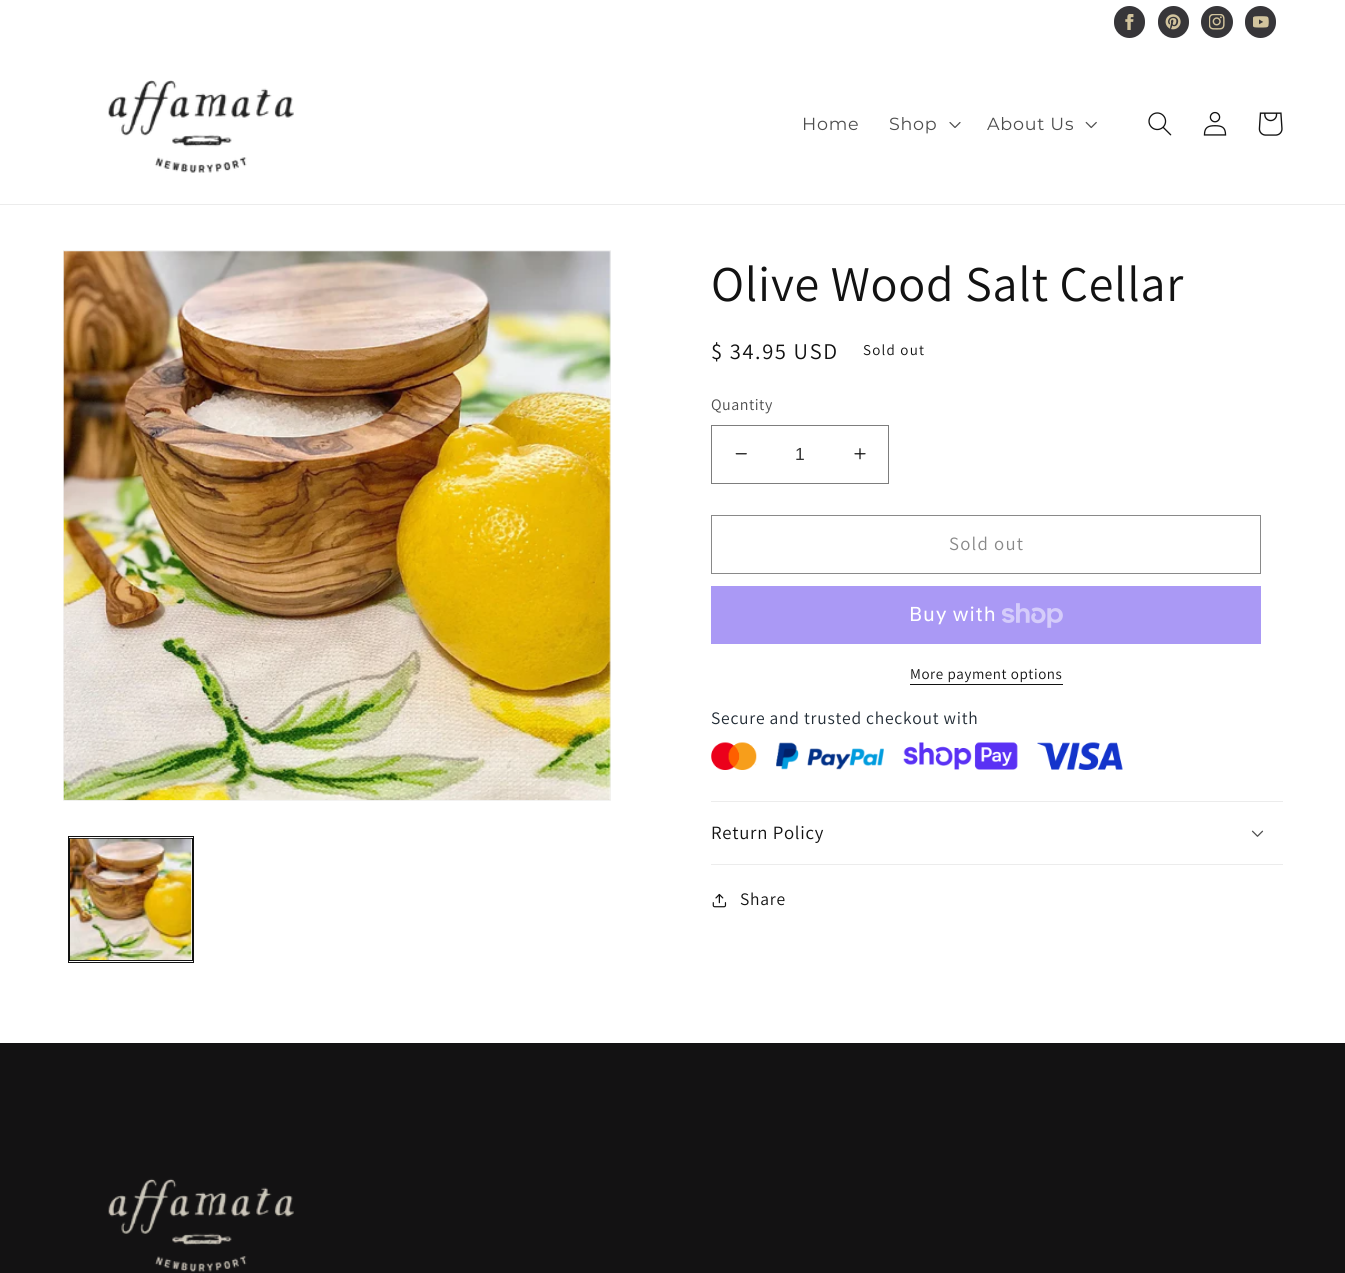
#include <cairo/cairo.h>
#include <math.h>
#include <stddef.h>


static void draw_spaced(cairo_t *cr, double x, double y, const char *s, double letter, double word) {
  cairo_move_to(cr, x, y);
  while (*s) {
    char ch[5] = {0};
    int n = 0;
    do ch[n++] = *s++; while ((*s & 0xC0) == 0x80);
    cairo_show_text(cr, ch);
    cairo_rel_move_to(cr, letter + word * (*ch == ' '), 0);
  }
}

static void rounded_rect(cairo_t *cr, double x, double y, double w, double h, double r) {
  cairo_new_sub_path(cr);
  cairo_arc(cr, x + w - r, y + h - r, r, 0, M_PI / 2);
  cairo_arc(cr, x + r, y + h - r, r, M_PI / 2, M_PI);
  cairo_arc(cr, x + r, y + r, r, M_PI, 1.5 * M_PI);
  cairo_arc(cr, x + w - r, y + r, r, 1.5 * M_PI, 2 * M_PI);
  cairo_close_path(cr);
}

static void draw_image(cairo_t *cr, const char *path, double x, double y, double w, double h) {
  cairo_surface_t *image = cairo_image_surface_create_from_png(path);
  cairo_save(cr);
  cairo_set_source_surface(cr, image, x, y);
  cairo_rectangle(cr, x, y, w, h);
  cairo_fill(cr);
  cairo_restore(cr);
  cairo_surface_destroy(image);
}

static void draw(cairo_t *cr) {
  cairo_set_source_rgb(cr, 1, 1, 1);
  cairo_paint(cr);
  cairo_set_source_rgb(cr, 236 / 255.0, 236 / 255.0, 236 / 255.0);
  cairo_rectangle(cr, 0, 204, 1345, 1);
  cairo_fill(cr);
  cairo_set_source_rgb(cr, 55 / 255.0, 54 / 255.0, 57 / 255.0);
  rounded_rect(cr, 1114, 6, 31, 32, 15.5);
  cairo_fill(cr);
  draw_image(cr, "images/1.png", 1125, 14, 9, 16);
  rounded_rect(cr, 1158, 6, 31, 32, 15.5);
  cairo_fill(cr);
  draw_image(cr, "images/2.png", 1165, 14, 16, 16);
  cairo_arc(cr, 1217, 22, 16, 0, 2 * M_PI);
  cairo_fill(cr);
  draw_image(cr, "images/3.png", 1209, 14, 16, 16);
  rounded_rect(cr, 1245, 6, 31, 32, 15.5);
  cairo_fill(cr);
  draw_image(cr, "images/4.png", 1253, 16, 16, 12);
  draw_image(cr, "images/5.png", 108, 80, 186, 93);
  draw_image(cr, "images/6.png", 949, 122, 12, 6);
  draw_image(cr, "images/7.png", 1085, 121, 12, 8);
  draw_image(cr, "images/8.png", 1148, 112, 24, 24);
  draw_image(cr, "images/9.png", 1203, 111, 24, 25);
  draw_image(cr, "images/10.png", 1258, 112, 25, 24);
  cairo_rectangle(cr, 63.5, 250.5, 547, 550);
  cairo_set_source_rgb(cr, 243 / 255.0, 243 / 255.0, 243 / 255.0);
  cairo_set_line_width(cr, 1);
  cairo_stroke(cr);
  draw_image(cr, "images/11.png", 63, 251, 548, 550);
  cairo_rectangle(cr, 68.5, 836.5, 125, 126);
  cairo_set_source_rgb(cr, 18 / 255.0, 18 / 255.0, 18 / 255.0);
  cairo_stroke(cr);
  cairo_rectangle(cr, 69.5, 838.5, 123, 122);
  cairo_stroke(cr);
  draw_image(cr, "images/12.png", 70, 838, 122, 122);
  draw_image(cr, "images/13.png", 735, 453, 12, 2);
  draw_image(cr, "images/14.png", 854, 448, 12, 12);
  cairo_rectangle(cr, 711.5, 425.5, 177, 58);
  cairo_set_source_rgb(cr, 125 / 255.0, 125 / 255.0, 125 / 255.0);
  cairo_stroke(cr);
  cairo_rectangle(cr, 711.5, 515.5, 549, 58);
  cairo_set_source_rgb(cr, 137 / 255.0, 137 / 255.0, 137 / 255.0);
  cairo_stroke(cr);
  cairo_set_source_rgb(cr, 170 / 255.0, 153 / 255.0, 245 / 255.0);
  cairo_rectangle(cr, 711, 586, 550, 58);
  cairo_fill(cr);
  draw_image(cr, "images/15.png", 1002, 603, 61, 25);
  cairo_set_source_rgb(cr, 18 / 255.0, 18 / 255.0, 18 / 255.0);
  cairo_rectangle(cr, 910, 684, 153, 1);
  cairo_fill(cr);
  draw_image(cr, "images/16.png", 711, 742, 46, 28);
  draw_image(cr, "images/17.png", 776, 742, 108, 28);
  draw_image(cr, "images/18.png", 903, 742, 115, 28);
  draw_image(cr, "images/19.png", 1037, 742, 86, 28);
  cairo_set_source_rgb(cr, 236 / 255.0, 236 / 255.0, 236 / 255.0);
  cairo_rectangle(cr, 711, 801, 572, 1);
  cairo_fill(cr);
  cairo_rectangle(cr, 711, 864, 572, 1);
  cairo_fill(cr);
  draw_image(cr, "images/20.png", 1251, 830, 13, 7);
  draw_image(cr, "images/21.png", 712, 893, 15, 15);
  cairo_set_source_rgb(cr, 19 / 255.0, 18 / 255.0, 19 / 255.0);
  cairo_rectangle(cr, 0, 1043, 1345, 230);
  cairo_fill(cr);
  draw_image(cr, "images/22.png", 108, 1178, 186, 94);
  cairo_select_font_face(cr, "Montserrat", CAIRO_FONT_SLANT_NORMAL, CAIRO_FONT_WEIGHT_NORMAL);
  cairo_set_font_size(cr, 17.5);
  cairo_set_source_rgb(cr, 77 / 255.0, 77 / 255.0, 77 / 255.0);
  draw_spaced(cr, 802, 130, "Home", 0.75, 0);
  draw_spaced(cr, 889, 130, "Shop", 0.75, 0);
  draw_spaced(cr, 987, 130, "About Us", 0.75, 0);
  cairo_select_font_face(cr, "Assistant", CAIRO_FONT_SLANT_NORMAL, CAIRO_FONT_WEIGHT_NORMAL);
  cairo_set_font_size(cr, 50);
  cairo_set_source_rgb(cr, 18 / 255.0, 18 / 255.0, 18 / 255.0);
  draw_spaced(cr, 711, 301, "Olive Wood Salt Cellar", 0.75, 0);
  cairo_set_font_size(cr, 22.5);
  draw_spaced(cr, 711, 359, "$ 34.95 USD", 1.6, 0);
  cairo_set_font_size(cr, 15);
  draw_spaced(cr, 863, 355, "Sold out", 1.25, 0);
  cairo_set_font_size(cr, 16);
  cairo_set_source_rgb(cr, 77 / 255.0, 77 / 255.0, 77 / 255.0);
  draw_spaced(cr, 711, 410, "Quantity", 0.5, 0);
  cairo_select_font_face(cr, "Liberation Sans", CAIRO_FONT_SLANT_NORMAL, CAIRO_FONT_WEIGHT_NORMAL);
  cairo_set_font_size(cr, 17.5);
  cairo_set_source_rgb(cr, 54 / 255.0, 54 / 255.0, 54 / 255.0);
  cairo_move_to(cr, 795, 460);
  cairo_show_text(cr, "1");
  cairo_select_font_face(cr, "Assistant", CAIRO_FONT_SLANT_NORMAL, CAIRO_FONT_WEIGHT_NORMAL);
  cairo_set_font_size(cr, 18.75);
  cairo_set_source_rgb(cr, 137 / 255.0, 137 / 255.0, 137 / 255.0);
  draw_spaced(cr, 949, 550, "Sold out", 1.25, 0);
  cairo_select_font_face(cr, "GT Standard", CAIRO_FONT_SLANT_NORMAL, CAIRO_FONT_WEIGHT_NORMAL);
  cairo_set_font_size(cr, 20);
  cairo_set_source_rgb(cr, 1, 1, 1);
  draw_spaced(cr, 909, 621, "Buy with", 0.75, 0);
  cairo_select_font_face(cr, "Assistant", CAIRO_FONT_SLANT_NORMAL, CAIRO_FONT_WEIGHT_NORMAL);
  cairo_set_font_size(cr, 15);
  cairo_set_source_rgb(cr, 18 / 255.0, 18 / 255.0, 18 / 255.0);
  draw_spaced(cr, 910, 679, "More payment options", 0.6, 0);
  cairo_set_font_size(cr, 17.5);
  cairo_set_source_rgb(cr, 33 / 255.0, 43 / 255.0, 53 / 255.0);
  draw_spaced(cr, 711, 724, "Secure and trusted checkout with", 0.75, 0);
  cairo_set_font_size(cr, 18.75);
  cairo_set_source_rgb(cr, 18 / 255.0, 18 / 255.0, 18 / 255.0);
  draw_spaced(cr, 711, 839, "Return Policy", 0.75, 0);
  cairo_set_font_size(cr, 17.5);
  draw_spaced(cr, 740, 905, "Share", 0.75, 0);
}

int main(void) {
  cairo_surface_t *surface = cairo_image_surface_create(CAIRO_FORMAT_RGB24, 1345, 1273);
  cairo_t *cr = cairo_create(surface);
  cairo_font_options_t *options = cairo_font_options_create();
  cairo_font_options_set_hint_metrics(options, CAIRO_HINT_METRICS_OFF);
  cairo_font_options_set_hint_style(options, CAIRO_HINT_STYLE_NONE);
  cairo_set_font_options(cr, options);
  cairo_set_miter_limit(cr, 4);
  draw(cr);
  cairo_surface_write_to_png(surface, "out.png");
  cairo_font_options_destroy(options);
  cairo_destroy(cr);
  cairo_surface_destroy(surface);
  return 0;
}
